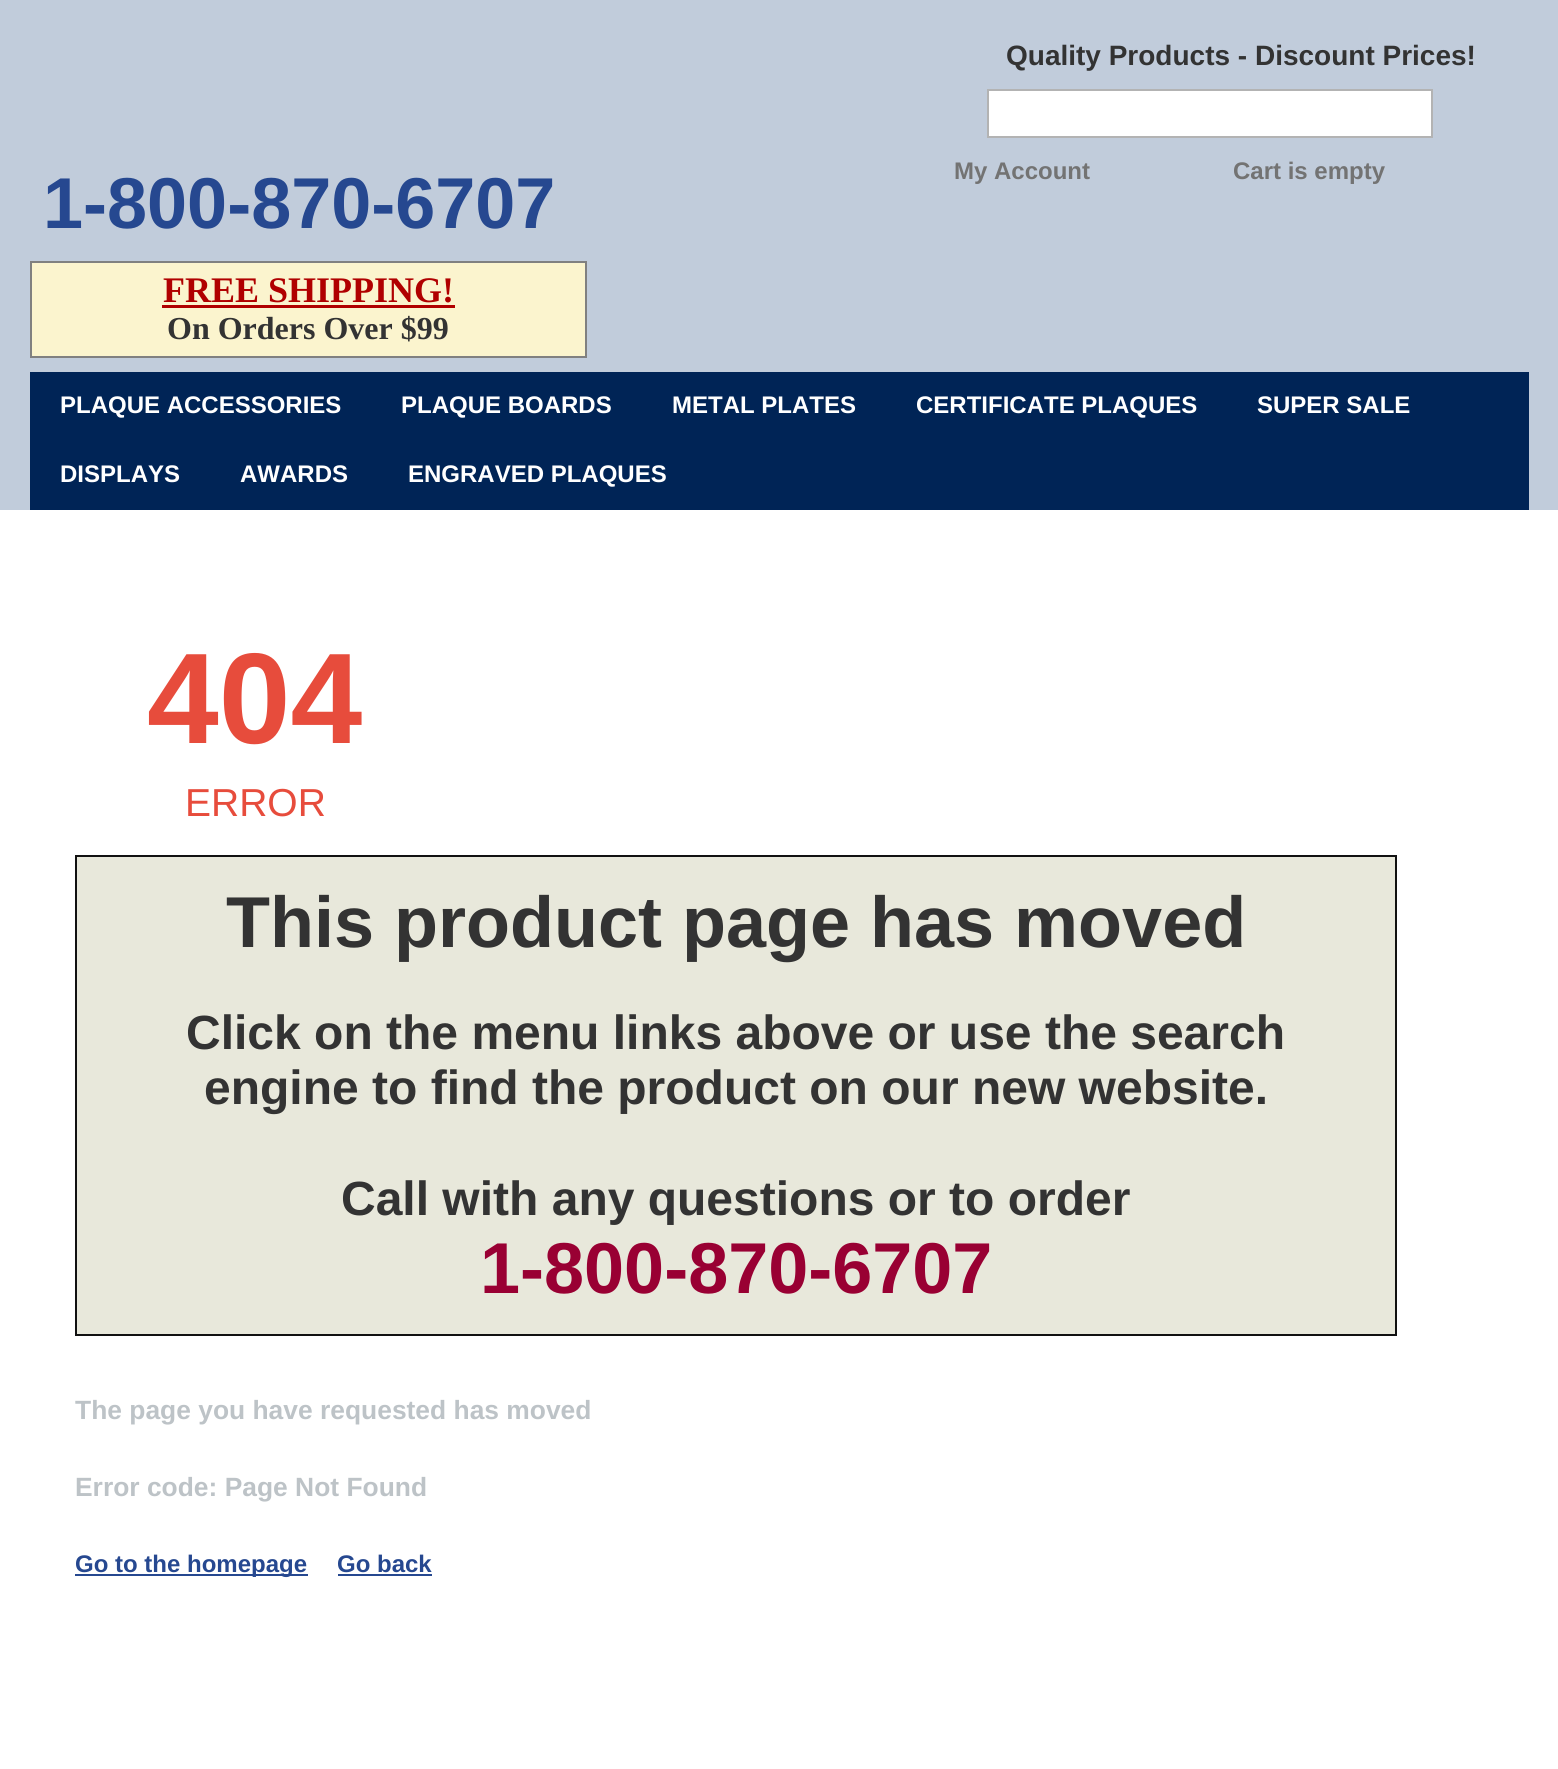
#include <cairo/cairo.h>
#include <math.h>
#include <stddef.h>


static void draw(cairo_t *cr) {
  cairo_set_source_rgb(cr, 193 / 255.0, 204 / 255.0, 219 / 255.0);
  cairo_paint(cr);
  cairo_set_source_rgb(cr, 1, 1, 1);
  cairo_rectangle(cr, 988, 90, 444, 47);
  cairo_fill_preserve(cr);
  cairo_set_source_rgb(cr, 179 / 255.0, 179 / 255.0, 179 / 255.0);
  cairo_stroke(cr);
  cairo_set_source_rgb(cr, 128 / 255.0, 128 / 255.0, 128 / 255.0);
  cairo_rectangle(cr, 30, 261, 557, 2);
  cairo_fill(cr);
  cairo_rectangle(cr, 585, 261, 2, 96);
  cairo_fill(cr);
  cairo_rectangle(cr, 30, 356, 557, 2);
  cairo_fill(cr);
  cairo_rectangle(cr, 30, 261, 2, 96);
  cairo_fill(cr);
  cairo_set_source_rgb(cr, 251 / 255.0, 244 / 255.0, 206 / 255.0);
  cairo_rectangle(cr, 32, 263, 553, 93);
  cairo_fill(cr);
  cairo_set_source_rgb(cr, 176 / 255.0, 0, 0);
  cairo_rectangle(cr, 162, 305, 293, 3);
  cairo_fill(cr);
  cairo_set_source_rgb(cr, 0, 36 / 255.0, 86 / 255.0);
  cairo_rectangle(cr, 30, 372, 1499, 138);
  cairo_fill(cr);
  cairo_set_source_rgb(cr, 1, 1, 1);
  cairo_rectangle(cr, 0, 510, 1558, 1259);
  cairo_fill(cr);
  cairo_set_source_rgb(cr, 17 / 255.0, 17 / 255.0, 17 / 255.0);
  cairo_rectangle(cr, 75, 855, 1322, 2);
  cairo_fill(cr);
  cairo_rectangle(cr, 1395, 855, 2, 480);
  cairo_fill(cr);
  cairo_rectangle(cr, 75, 1334, 1322, 2);
  cairo_fill(cr);
  cairo_rectangle(cr, 75, 855, 2, 480);
  cairo_fill(cr);
  cairo_set_source_rgb(cr, 232 / 255.0, 232 / 255.0, 219 / 255.0);
  cairo_rectangle(cr, 77, 857, 1318, 477);
  cairo_fill(cr);
  cairo_set_source_rgb(cr, 38 / 255.0, 72 / 255.0, 144 / 255.0);
  cairo_rectangle(cr, 75, 1574, 233, 2);
  cairo_fill(cr);
  cairo_rectangle(cr, 338, 1574, 94, 2);
  cairo_fill(cr);
  cairo_select_font_face(cr, "Liberation Sans", CAIRO_FONT_SLANT_NORMAL, CAIRO_FONT_WEIGHT_BOLD);
  cairo_set_font_size(cr, 28);
  cairo_set_source_rgb(cr, 51 / 255.0, 51 / 255.0, 51 / 255.0);
  cairo_move_to(cr, 1006, 65);
  cairo_show_text(cr, "Quality Products - Discount Prices!");
  cairo_set_font_size(cr, 24);
  cairo_set_source_rgb(cr, 115 / 255.0, 115 / 255.0, 115 / 255.0);
  cairo_move_to(cr, 954, 179);
  cairo_show_text(cr, "My Account");
  cairo_move_to(cr, 1233, 179);
  cairo_show_text(cr, "Cart is empty");
  cairo_set_font_size(cr, 72);
  cairo_set_source_rgb(cr, 38 / 255.0, 72 / 255.0, 144 / 255.0);
  cairo_move_to(cr, 43, 228);
  cairo_show_text(cr, "1-800-870-6707");
  cairo_select_font_face(cr, "Liberation Serif", CAIRO_FONT_SLANT_NORMAL, CAIRO_FONT_WEIGHT_BOLD);
  cairo_set_font_size(cr, 36);
  cairo_set_source_rgb(cr, 176 / 255.0, 0, 0);
  cairo_move_to(cr, 163, 302);
  cairo_show_text(cr, "FREE SHIPPING!");
  cairo_set_font_size(cr, 32);
  cairo_set_source_rgb(cr, 51 / 255.0, 51 / 255.0, 51 / 255.0);
  cairo_move_to(cr, 167, 339);
  cairo_show_text(cr, "On Orders Over $99");
  cairo_select_font_face(cr, "Liberation Sans", CAIRO_FONT_SLANT_NORMAL, CAIRO_FONT_WEIGHT_BOLD);
  cairo_set_font_size(cr, 24);
  cairo_set_source_rgb(cr, 1, 1, 1);
  cairo_move_to(cr, 60, 413);
  cairo_show_text(cr, "PLAQUE ACCESSORIES");
  cairo_move_to(cr, 401, 413);
  cairo_show_text(cr, "PLAQUE BOARDS");
  cairo_move_to(cr, 672, 413);
  cairo_show_text(cr, "METAL PLATES");
  cairo_move_to(cr, 916, 413);
  cairo_show_text(cr, "CERTIFICATE PLAQUES");
  cairo_move_to(cr, 1257, 413);
  cairo_show_text(cr, "SUPER SALE");
  cairo_move_to(cr, 60, 482);
  cairo_show_text(cr, "DISPLAYS");
  cairo_move_to(cr, 240, 482);
  cairo_show_text(cr, "AWARDS");
  cairo_move_to(cr, 408, 482);
  cairo_show_text(cr, "ENGRAVED PLAQUES");
  cairo_set_font_size(cr, 129);
  cairo_set_source_rgb(cr, 231 / 255.0, 76 / 255.0, 60 / 255.0);
  cairo_move_to(cr, 147, 743);
  cairo_show_text(cr, "404");
  cairo_select_font_face(cr, "Liberation Sans", CAIRO_FONT_SLANT_NORMAL, CAIRO_FONT_WEIGHT_NORMAL);
  cairo_set_font_size(cr, 39);
  cairo_move_to(cr, 185, 816);
  cairo_show_text(cr, "ERROR");
  cairo_select_font_face(cr, "Liberation Sans", CAIRO_FONT_SLANT_NORMAL, CAIRO_FONT_WEIGHT_BOLD);
  cairo_set_font_size(cr, 72);
  cairo_set_source_rgb(cr, 51 / 255.0, 51 / 255.0, 51 / 255.0);
  cairo_move_to(cr, 226, 947);
  cairo_show_text(cr, "This product page has moved");
  cairo_set_font_size(cr, 48);
  cairo_move_to(cr, 186, 1049);
  cairo_show_text(cr, "Click on the menu links above or use the search");
  cairo_move_to(cr, 204, 1104);
  cairo_show_text(cr, "engine to find the product on our new website.");
  cairo_move_to(cr, 341, 1215);
  cairo_show_text(cr, "Call with any questions or to order");
  cairo_set_font_size(cr, 72);
  cairo_set_source_rgb(cr, 153 / 255.0, 0, 51 / 255.0);
  cairo_move_to(cr, 480, 1293);
  cairo_show_text(cr, "1-800-870-6707");
  cairo_set_font_size(cr, 26.4);
  cairo_set_source_rgb(cr, 189 / 255.0, 195 / 255.0, 199 / 255.0);
  cairo_move_to(cr, 75, 1419);
  cairo_show_text(cr, "The page you have requested has moved");
  cairo_move_to(cr, 75, 1496);
  cairo_show_text(cr, "Error code: Page Not Found");
  cairo_set_font_size(cr, 24);
  cairo_set_source_rgb(cr, 38 / 255.0, 72 / 255.0, 144 / 255.0);
  cairo_move_to(cr, 75, 1572);
  cairo_show_text(cr, "Go to the homepage");
  cairo_move_to(cr, 337, 1572);
  cairo_show_text(cr, "Go back");
}

int main(void) {
  cairo_surface_t *surface = cairo_image_surface_create(CAIRO_FORMAT_RGB24, 1558, 1769);
  cairo_t *cr = cairo_create(surface);
  cairo_font_options_t *options = cairo_font_options_create();
  cairo_font_options_set_hint_metrics(options, CAIRO_HINT_METRICS_OFF);
  cairo_font_options_set_hint_style(options, CAIRO_HINT_STYLE_NONE);
  cairo_set_font_options(cr, options);
  cairo_set_miter_limit(cr, 4);
  draw(cr);
  cairo_surface_write_to_png(surface, "out.png");
  cairo_font_options_destroy(options);
  cairo_destroy(cr);
  cairo_surface_destroy(surface);
  return 0;
}
